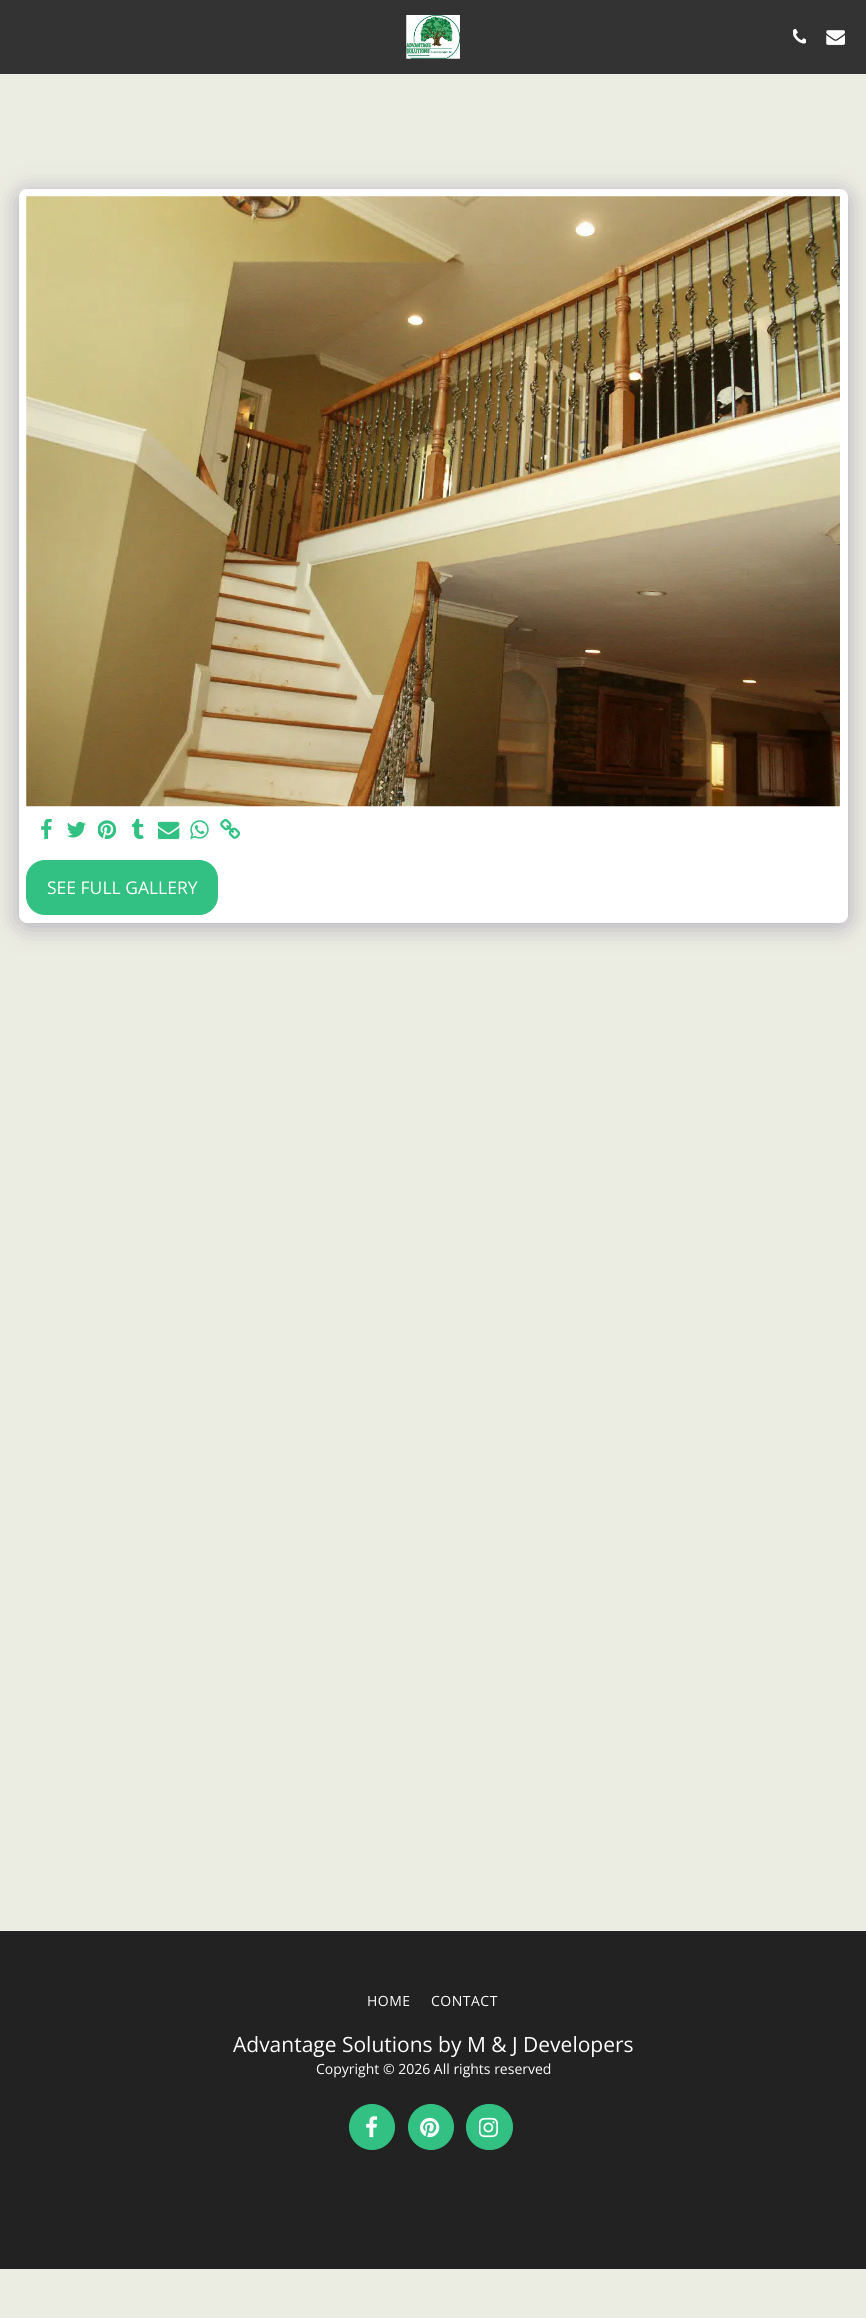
#include <cairo/cairo.h>
#include <math.h>
#include <stddef.h>


static void draw_spaced(cairo_t *cr, double x, double y, const char *s, double letter, double word) {
  cairo_move_to(cr, x, y);
  while (*s) {
    char ch[5] = {0};
    int n = 0;
    do ch[n++] = *s++; while ((*s & 0xC0) == 0x80);
    cairo_show_text(cr, ch);
    cairo_rel_move_to(cr, letter + word * (*ch == ' '), 0);
  }
}

static void rounded_rect(cairo_t *cr, double x, double y, double w, double h, double r) {
  cairo_new_sub_path(cr);
  cairo_arc(cr, x + w - r, y + h - r, r, 0, M_PI / 2);
  cairo_arc(cr, x + r, y + h - r, r, M_PI / 2, M_PI);
  cairo_arc(cr, x + r, y + r, r, M_PI, 1.5 * M_PI);
  cairo_arc(cr, x + w - r, y + r, r, 1.5 * M_PI, 2 * M_PI);
  cairo_close_path(cr);
}

static void draw_shadow(cairo_t *cr, double x, double y, double w, double h, double r, double blur, double alpha) {
  cairo_push_group_with_content(cr, CAIRO_CONTENT_ALPHA);
  cairo_set_operator(cr, CAIRO_OPERATOR_SOURCE);
  for (int i = 15; i >= -15 && fmin(w, h) + blur * i / 3 > 0; i -= 2) {
    double e = blur * i / 6;
    cairo_set_source_rgba(cr, 0, 0, 0, alpha * erfc((i - 1) / 8.5) / 2);
    rounded_rect(cr, x - e, y - e, w + 2 * e, h + 2 * e, fmax(0, fmin(r + e + blur * .6, fmin(w, h) / 2 + e)));
    cairo_fill(cr);
  }
  cairo_pattern_t *soft = cairo_pop_group(cr);
  cairo_mask(cr, soft);
  cairo_pattern_destroy(soft);
}

static void draw_image(cairo_t *cr, const char *path, double x, double y, double w, double h) {
  cairo_surface_t *image = cairo_image_surface_create_from_png(path);
  cairo_save(cr);
  cairo_set_source_surface(cr, image, x, y);
  cairo_rectangle(cr, x, y, w, h);
  cairo_fill(cr);
  cairo_restore(cr);
  cairo_surface_destroy(image);
}

static void draw(cairo_t *cr) {
  cairo_set_source_rgb(cr, 236 / 255.0, 237 / 255.0, 226 / 255.0);
  cairo_paint(cr);
  cairo_set_source_rgb(cr, 51 / 255.0, 51 / 255.0, 51 / 255.0);
  cairo_rectangle(cr, 0, 0, 866, 74);
  cairo_fill(cr);
  cairo_set_source_rgb(cr, 243 / 255.0, 238 / 255.0, 238 / 255.0);
  cairo_rectangle(cr, 0, 74, 866, 1);
  cairo_fill(cr);
  draw_image(cr, "images/1.png", 406, 15, 54, 44);
  draw_image(cr, "images/2.png", 793, 28, 13, 16);
  draw_image(cr, "images/3.png", 826, 30, 19, 15);
  cairo_set_source_rgb(cr, 77 / 255.0, 63 / 255.0, 122 / 255.0);
  draw_shadow(cr, 19, 193, 829, 733, 8, 12.5, 0.4);
  cairo_set_source_rgb(cr, 1, 1, 1);
  rounded_rect(cr, 19, 189, 829, 734, 8);
  cairo_fill(cr);
  draw_image(cr, "images/4.png", 26, 196, 814, 611);
  draw_image(cr, "images/5.png", 41, 819, 11, 21);
  draw_image(cr, "images/6.png", 67, 821, 19, 17);
  draw_image(cr, "images/7.png", 98, 820, 18, 20);
  draw_image(cr, "images/8.png", 132, 819, 12, 21);
  draw_image(cr, "images/9.png", 158, 821, 22, 19);
  draw_image(cr, "images/10.png", 190, 820, 19, 20);
  draw_image(cr, "images/11.png", 220, 819, 20, 20);
  cairo_set_source_rgb(cr, 50 / 255.0, 193 / 255.0, 130 / 255.0);
  rounded_rect(cr, 26.5, 860.5, 191, 54, 18.5);
  cairo_fill_preserve(cr);
  cairo_set_line_width(cr, 1);
  cairo_stroke(cr);
  cairo_set_source_rgb(cr, 34 / 255.0, 34 / 255.0, 34 / 255.0);
  cairo_rectangle(cr, 0, 1931, 866, 338);
  cairo_fill(cr);
  cairo_set_source_rgb(cr, 243 / 255.0, 238 / 255.0, 238 / 255.0);
  cairo_rectangle(cr, 0, 1930, 866, 1);
  cairo_fill(cr);
  cairo_set_source_rgb(cr, 50 / 255.0, 193 / 255.0, 130 / 255.0);
  cairo_arc(cr, 372, 2127, 22.5, 0, 2 * M_PI);
  cairo_fill_preserve(cr);
  cairo_stroke(cr);
  draw_image(cr, "images/12.png", 366, 2116, 12, 22);
  cairo_arc(cr, 431, 2127, 22.5, 0, 2 * M_PI);
  cairo_fill_preserve(cr);
  cairo_stroke(cr);
  draw_image(cr, "images/13.png", 420, 2117, 20, 21);
  rounded_rect(cr, 466.5, 2104.5, 46, 45, 22.5);
  cairo_fill_preserve(cr);
  cairo_stroke(cr);
  draw_image(cr, "images/14.png", 479, 2117, 19, 21);
  cairo_select_font_face(cr, "Open Sans", CAIRO_FONT_SLANT_NORMAL, CAIRO_FONT_WEIGHT_NORMAL);
  cairo_set_font_size(cr, 17.5);
  cairo_set_source_rgb(cr, 1, 1, 1);
  cairo_move_to(cr, 47, 894);
  cairo_show_text(cr, "SEE FULL GALLERY");
  cairo_set_font_size(cr, 14);
  draw_spaced(cr, 367, 2006, "HOME", 0.5, 0);
  draw_spaced(cr, 431, 2006, "CONTACT", 0.5, 0);
  cairo_set_font_size(cr, 21);
  cairo_move_to(cr, 233, 2052);
  cairo_show_text(cr, "Advantage Solutions by M & J Developers");
  cairo_set_font_size(cr, 14);
  cairo_move_to(cr, 316, 2074);
  cairo_show_text(cr, "Copyright © 2026 All rights reserved");
}

int main(void) {
  cairo_surface_t *surface = cairo_image_surface_create(CAIRO_FORMAT_RGB24, 866, 2318);
  cairo_t *cr = cairo_create(surface);
  cairo_font_options_t *options = cairo_font_options_create();
  cairo_font_options_set_hint_metrics(options, CAIRO_HINT_METRICS_OFF);
  cairo_font_options_set_hint_style(options, CAIRO_HINT_STYLE_NONE);
  cairo_set_font_options(cr, options);
  cairo_set_miter_limit(cr, 4);
  draw(cr);
  cairo_surface_write_to_png(surface, "out.png");
  cairo_font_options_destroy(options);
  cairo_destroy(cr);
  cairo_surface_destroy(surface);
  return 0;
}
